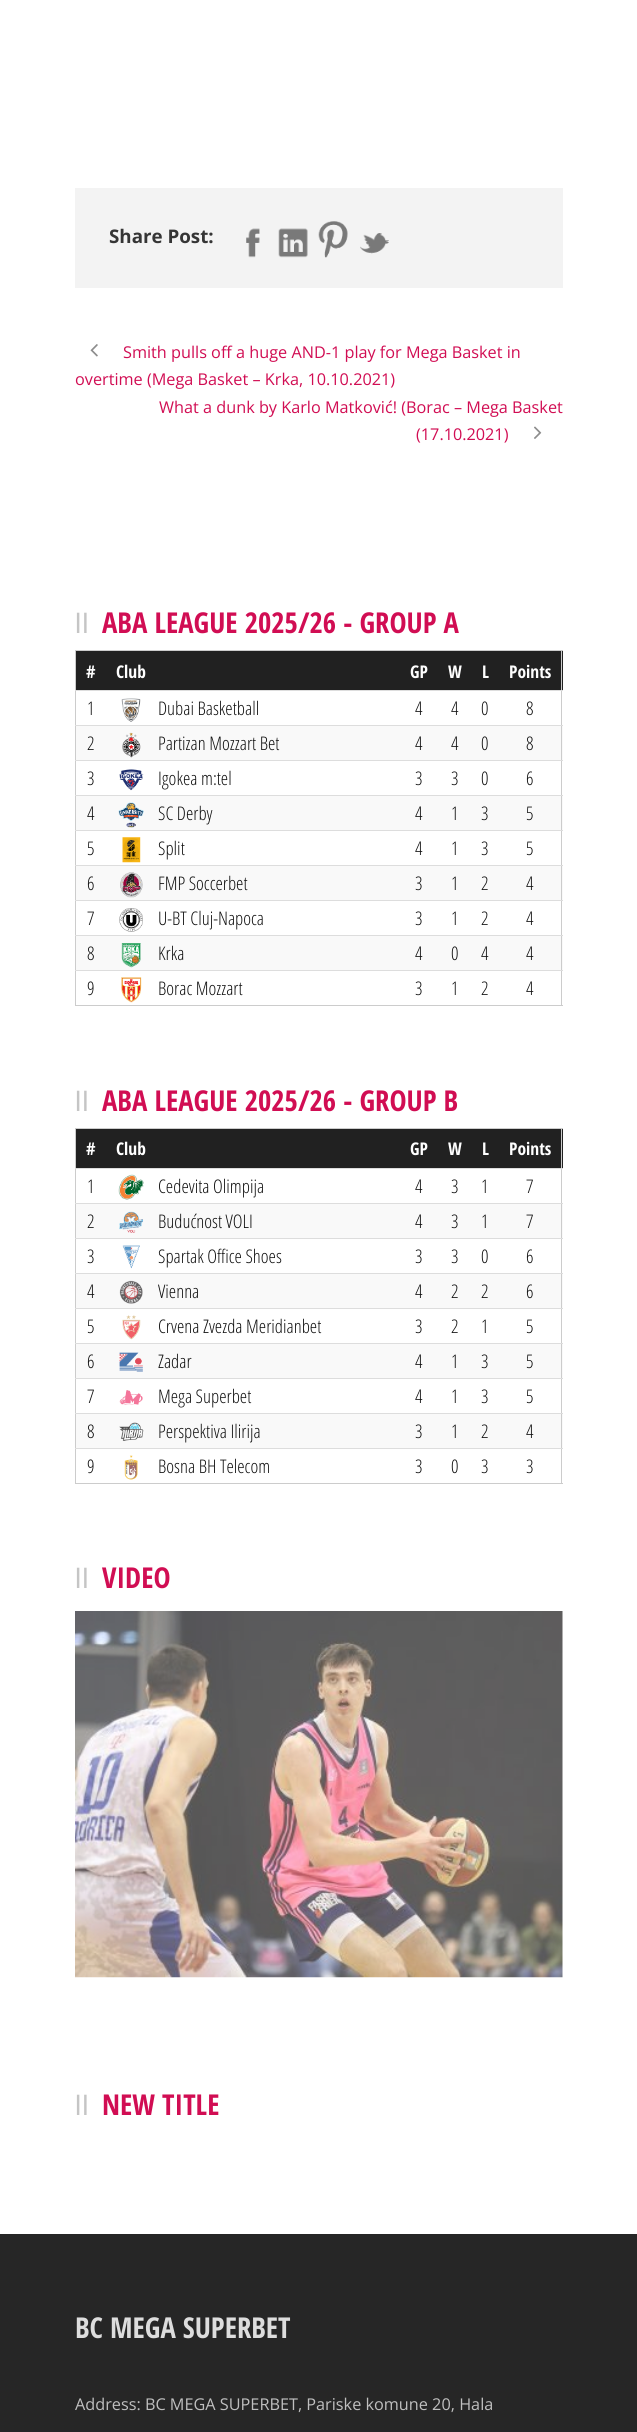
#include <cairo/cairo.h>
#include <math.h>
#include <stddef.h>


static void draw_spaced(cairo_t *cr, double x, double y, const char *s, double letter, double word) {
  cairo_move_to(cr, x, y);
  while (*s) {
    char ch[5] = {0};
    int n = 0;
    do ch[n++] = *s++; while ((*s & 0xC0) == 0x80);
    cairo_show_text(cr, ch);
    cairo_rel_move_to(cr, letter + word * (*ch == ' '), 0);
  }
}

static void draw_image(cairo_t *cr, const char *path, double x, double y, double w, double h) {
  cairo_surface_t *image = cairo_image_surface_create_from_png(path);
  cairo_save(cr);
  cairo_set_source_surface(cr, image, x, y);
  cairo_rectangle(cr, x, y, w, h);
  cairo_fill(cr);
  cairo_restore(cr);
  cairo_surface_destroy(image);
}

static void draw(cairo_t *cr) {
  cairo_set_source_rgb(cr, 1, 1, 1);
  cairo_paint(cr);
  cairo_set_source_rgb(cr, 243 / 255.0, 243 / 255.0, 243 / 255.0);
  cairo_rectangle(cr, 75, 188, 488, 100);
  cairo_fill(cr);
  draw_image(cr, "images/1.png", 246, 228, 14, 30);
  draw_image(cr, "images/2.png", 278, 228, 30, 30);
  draw_image(cr, "images/3.png", 318, 221, 30, 37);
  draw_image(cr, "images/4.png", 360, 233, 29, 21);
  draw_image(cr, "images/5.png", 90, 344, 8, 13);
  draw_image(cr, "images/6.png", 534, 426, 8, 13);
  cairo_set_source_rgb(cr, 204 / 255.0, 204 / 255.0, 204 / 255.0);
  cairo_rectangle(cr, 75, 650, 488, 1);
  cairo_fill(cr);
  cairo_set_source_rgb(cr, 33 / 255.0, 33 / 255.0, 33 / 255.0);
  cairo_rectangle(cr, 76, 651, 487, 39);
  cairo_fill(cr);
  cairo_set_source_rgb(cr, 249 / 255.0, 249 / 255.0, 249 / 255.0);
  cairo_rectangle(cr, 76, 726, 487, 34);
  cairo_fill(cr);
  cairo_rectangle(cr, 76, 796, 487, 34);
  cairo_fill(cr);
  cairo_rectangle(cr, 76, 866, 487, 34);
  cairo_fill(cr);
  cairo_rectangle(cr, 76, 936, 487, 34);
  cairo_fill(cr);
  cairo_set_source_rgb(cr, 204 / 255.0, 204 / 255.0, 204 / 255.0);
  cairo_rectangle(cr, 561, 650, 1, 356);
  cairo_fill(cr);
  cairo_rectangle(cr, 75, 1005, 488, 1);
  cairo_fill(cr);
  cairo_rectangle(cr, 75, 650, 1, 356);
  cairo_fill(cr);
  draw_image(cr, "images/7.png", 121, 698, 20, 24);
  cairo_set_source_rgb(cr, 221 / 255.0, 221 / 255.0, 221 / 255.0);
  cairo_rectangle(cr, 75, 690, 488, 1);
  cairo_fill(cr);
  draw_image(cr, "images/8.png", 122, 732, 19, 26);
  cairo_rectangle(cr, 75, 725, 488, 1);
  cairo_fill(cr);
  draw_image(cr, "images/9.png", 119, 769, 25, 22);
  cairo_rectangle(cr, 75, 760, 488, 1);
  cairo_fill(cr);
  draw_image(cr, "images/10.png", 118, 802, 26, 26);
  cairo_rectangle(cr, 75, 795, 488, 1);
  cairo_fill(cr);
  draw_image(cr, "images/11.png", 122, 837, 19, 26);
  cairo_rectangle(cr, 75, 830, 488, 1);
  cairo_fill(cr);
  draw_image(cr, "images/12.png", 120, 872, 23, 26);
  cairo_rectangle(cr, 75, 865, 488, 1);
  cairo_fill(cr);
  draw_image(cr, "images/13.png", 119, 908, 24, 24);
  cairo_rectangle(cr, 75, 900, 488, 1);
  cairo_fill(cr);
  draw_image(cr, "images/14.png", 121, 943, 20, 25);
  cairo_rectangle(cr, 75, 935, 488, 1);
  cairo_fill(cr);
  draw_image(cr, "images/15.png", 121, 977, 21, 26);
  cairo_rectangle(cr, 75, 970, 488, 1);
  cairo_fill(cr);
  cairo_set_source_rgb(cr, 204 / 255.0, 204 / 255.0, 204 / 255.0);
  cairo_rectangle(cr, 75, 1128, 488, 1);
  cairo_fill(cr);
  cairo_set_source_rgb(cr, 33 / 255.0, 33 / 255.0, 33 / 255.0);
  cairo_rectangle(cr, 76, 1129, 487, 39);
  cairo_fill(cr);
  cairo_set_source_rgb(cr, 249 / 255.0, 249 / 255.0, 249 / 255.0);
  cairo_rectangle(cr, 76, 1204, 487, 34);
  cairo_fill(cr);
  cairo_rectangle(cr, 76, 1274, 487, 34);
  cairo_fill(cr);
  cairo_rectangle(cr, 76, 1344, 487, 34);
  cairo_fill(cr);
  cairo_rectangle(cr, 76, 1414, 487, 34);
  cairo_fill(cr);
  cairo_set_source_rgb(cr, 204 / 255.0, 204 / 255.0, 204 / 255.0);
  cairo_rectangle(cr, 561, 1128, 1, 356);
  cairo_fill(cr);
  cairo_rectangle(cr, 75, 1483, 488, 1);
  cairo_fill(cr);
  cairo_rectangle(cr, 75, 1128, 1, 356);
  cairo_fill(cr);
  draw_image(cr, "images/16.png", 118, 1174, 26, 26);
  cairo_set_source_rgb(cr, 221 / 255.0, 221 / 255.0, 221 / 255.0);
  cairo_rectangle(cr, 75, 1168, 488, 1);
  cairo_fill(cr);
  draw_image(cr, "images/17.png", 119, 1211, 25, 22);
  cairo_rectangle(cr, 75, 1203, 488, 1);
  cairo_fill(cr);
  draw_image(cr, "images/18.png", 122, 1245, 18, 24);
  cairo_rectangle(cr, 75, 1238, 488, 1);
  cairo_fill(cr);
  draw_image(cr, "images/19.png", 119, 1280, 24, 24);
  cairo_rectangle(cr, 75, 1273, 488, 1);
  cairo_fill(cr);
  draw_image(cr, "images/20.png", 122, 1315, 19, 25);
  cairo_rectangle(cr, 75, 1308, 488, 1);
  cairo_fill(cr);
  draw_image(cr, "images/21.png", 119, 1352, 24, 20);
  cairo_rectangle(cr, 75, 1343, 488, 1);
  cairo_fill(cr);
  draw_image(cr, "images/22.png", 119, 1390, 24, 15);
  cairo_rectangle(cr, 75, 1378, 488, 1);
  cairo_fill(cr);
  draw_image(cr, "images/23.png", 119, 1422, 25, 19);
  cairo_rectangle(cr, 75, 1413, 488, 1);
  cairo_fill(cr);
  draw_image(cr, "images/24.png", 124, 1455, 14, 25);
  cairo_rectangle(cr, 75, 1448, 488, 1);
  cairo_fill(cr);
  draw_image(cr, "images/25.png", 75, 1611, 488, 367);
  cairo_set_source_rgb(cr, 38 / 255.0, 38 / 255.0, 38 / 255.0);
  cairo_rectangle(cr, 0, 2234, 637, 198);
  cairo_fill(cr);
  cairo_select_font_face(cr, "Open Sans", CAIRO_FONT_SLANT_NORMAL, CAIRO_FONT_WEIGHT_BOLD);
  cairo_set_font_size(cr, 18.75);
  cairo_set_source_rgb(cr, 53 / 255.0, 53 / 255.0, 53 / 255.0);
  cairo_move_to(cr, 109, 243);
  cairo_show_text(cr, "Share Post:");
  cairo_select_font_face(cr, "Open Sans", CAIRO_FONT_SLANT_NORMAL, CAIRO_FONT_WEIGHT_NORMAL);
  cairo_set_font_size(cr, 16.25);
  cairo_set_source_rgb(cr, 209 / 255.0, 13 / 255.0, 83 / 255.0);
  cairo_move_to(cr, 123, 358);
  cairo_show_text(cr, "Smith pulls off a huge AND-1 play for Mega Basket in");
  cairo_move_to(cr, 75, 385);
  cairo_show_text(cr, "overtime (Mega Basket – Krka, 10.10.2021)");
  cairo_move_to(cr, 159, 413);
  cairo_show_text(cr, "What a dunk by Karlo Matković! (Borac – Mega Basket");
  cairo_move_to(cr, 416, 440);
  cairo_show_text(cr, "(17.10.2021)");
  cairo_select_font_face(cr, "Liberation Sans", CAIRO_FONT_SLANT_NORMAL, CAIRO_FONT_WEIGHT_NORMAL);
  cairo_set_font_size(cr, 28);
  cairo_set_source_rgb(cr, 197 / 255.0, 197 / 255.0, 197 / 255.0);
  draw_spaced(cr, 75, 633, "ll", 1, 0);
  cairo_select_font_face(cr, "Open Sans Condensed", CAIRO_FONT_SLANT_NORMAL, CAIRO_FONT_WEIGHT_BOLD);
  cairo_set_font_size(cr, 28.75);
  cairo_set_source_rgb(cr, 209 / 255.0, 13 / 255.0, 83 / 255.0);
  cairo_move_to(cr, 102, 633);
  cairo_show_text(cr, "ABA LEAGUE 2025/26 - GROUP A");
  cairo_set_font_size(cr, 17.5);
  cairo_set_source_rgb(cr, 1, 1, 1);
  cairo_move_to(cr, 86, 678);
  cairo_show_text(cr, "#");
  cairo_move_to(cr, 116, 678);
  cairo_show_text(cr, "Club");
  cairo_move_to(cr, 410, 678);
  cairo_show_text(cr, "GP");
  cairo_move_to(cr, 448, 678);
  cairo_show_text(cr, "W");
  cairo_move_to(cr, 482, 678);
  cairo_show_text(cr, "L");
  cairo_move_to(cr, 509, 678);
  cairo_show_text(cr, "Points");
  cairo_select_font_face(cr, "Open Sans Condensed Light", CAIRO_FONT_SLANT_NORMAL, CAIRO_FONT_WEIGHT_NORMAL);
  cairo_set_font_size(cr, 18.75);
  cairo_set_source_rgb(cr, 17 / 255.0, 17 / 255.0, 17 / 255.0);
  cairo_move_to(cr, 87, 715);
  cairo_show_text(cr, "1");
  cairo_move_to(cr, 158, 715);
  cairo_show_text(cr, "Dubai Basketball");
  cairo_move_to(cr, 415, 715);
  cairo_show_text(cr, "4");
  cairo_move_to(cr, 451, 715);
  cairo_show_text(cr, "4");
  cairo_move_to(cr, 481, 715);
  cairo_show_text(cr, "0");
  cairo_move_to(cr, 526, 715);
  cairo_show_text(cr, "8");
  cairo_move_to(cr, 87, 750);
  cairo_show_text(cr, "2");
  cairo_move_to(cr, 158, 750);
  cairo_show_text(cr, "Partizan Mozzart Bet");
  cairo_move_to(cr, 415, 750);
  cairo_show_text(cr, "4");
  cairo_move_to(cr, 451, 750);
  cairo_show_text(cr, "4");
  cairo_move_to(cr, 481, 750);
  cairo_show_text(cr, "0");
  cairo_move_to(cr, 526, 750);
  cairo_show_text(cr, "8");
  cairo_move_to(cr, 87, 785);
  cairo_show_text(cr, "3");
  cairo_move_to(cr, 158, 785);
  cairo_show_text(cr, "Igokea m:tel");
  cairo_move_to(cr, 415, 785);
  cairo_show_text(cr, "3");
  cairo_move_to(cr, 451, 785);
  cairo_show_text(cr, "3");
  cairo_move_to(cr, 481, 785);
  cairo_show_text(cr, "0");
  cairo_move_to(cr, 526, 785);
  cairo_show_text(cr, "6");
  cairo_move_to(cr, 87, 820);
  cairo_show_text(cr, "4");
  cairo_move_to(cr, 158, 820);
  cairo_show_text(cr, "SC Derby");
  cairo_move_to(cr, 415, 820);
  cairo_show_text(cr, "4");
  cairo_move_to(cr, 451, 820);
  cairo_show_text(cr, "1");
  cairo_move_to(cr, 481, 820);
  cairo_show_text(cr, "3");
  cairo_move_to(cr, 526, 820);
  cairo_show_text(cr, "5");
  cairo_move_to(cr, 87, 855);
  cairo_show_text(cr, "5");
  cairo_move_to(cr, 158, 855);
  cairo_show_text(cr, "Split");
  cairo_move_to(cr, 415, 855);
  cairo_show_text(cr, "4");
  cairo_move_to(cr, 451, 855);
  cairo_show_text(cr, "1");
  cairo_move_to(cr, 481, 855);
  cairo_show_text(cr, "3");
  cairo_move_to(cr, 526, 855);
  cairo_show_text(cr, "5");
  cairo_move_to(cr, 87, 890);
  cairo_show_text(cr, "6");
  cairo_move_to(cr, 158, 890);
  cairo_show_text(cr, "FMP Soccerbet");
  cairo_move_to(cr, 415, 890);
  cairo_show_text(cr, "3");
  cairo_move_to(cr, 451, 890);
  cairo_show_text(cr, "1");
  cairo_move_to(cr, 481, 890);
  cairo_show_text(cr, "2");
  cairo_move_to(cr, 526, 890);
  cairo_show_text(cr, "4");
  cairo_move_to(cr, 87, 925);
  cairo_show_text(cr, "7");
  cairo_move_to(cr, 158, 925);
  cairo_show_text(cr, "U-BT Cluj-Napoca");
  cairo_move_to(cr, 415, 925);
  cairo_show_text(cr, "3");
  cairo_move_to(cr, 451, 925);
  cairo_show_text(cr, "1");
  cairo_move_to(cr, 481, 925);
  cairo_show_text(cr, "2");
  cairo_move_to(cr, 526, 925);
  cairo_show_text(cr, "4");
  cairo_move_to(cr, 87, 960);
  cairo_show_text(cr, "8");
  cairo_move_to(cr, 158, 960);
  cairo_show_text(cr, "Krka");
  cairo_move_to(cr, 415, 960);
  cairo_show_text(cr, "4");
  cairo_move_to(cr, 451, 960);
  cairo_show_text(cr, "0");
  cairo_move_to(cr, 481, 960);
  cairo_show_text(cr, "4");
  cairo_move_to(cr, 526, 960);
  cairo_show_text(cr, "4");
  cairo_move_to(cr, 87, 995);
  cairo_show_text(cr, "9");
  cairo_move_to(cr, 158, 995);
  cairo_show_text(cr, "Borac Mozzart");
  cairo_move_to(cr, 415, 995);
  cairo_show_text(cr, "3");
  cairo_move_to(cr, 451, 995);
  cairo_show_text(cr, "1");
  cairo_move_to(cr, 481, 995);
  cairo_show_text(cr, "2");
  cairo_move_to(cr, 526, 995);
  cairo_show_text(cr, "4");
  cairo_select_font_face(cr, "Liberation Sans", CAIRO_FONT_SLANT_NORMAL, CAIRO_FONT_WEIGHT_NORMAL);
  cairo_set_font_size(cr, 28);
  cairo_set_source_rgb(cr, 197 / 255.0, 197 / 255.0, 197 / 255.0);
  draw_spaced(cr, 75, 1111, "ll", 1, 0);
  cairo_select_font_face(cr, "Open Sans Condensed", CAIRO_FONT_SLANT_NORMAL, CAIRO_FONT_WEIGHT_BOLD);
  cairo_set_font_size(cr, 28.75);
  cairo_set_source_rgb(cr, 209 / 255.0, 13 / 255.0, 83 / 255.0);
  cairo_move_to(cr, 102, 1111);
  cairo_show_text(cr, "ABA LEAGUE 2025/26 - GROUP B");
  cairo_set_font_size(cr, 17.5);
  cairo_set_source_rgb(cr, 1, 1, 1);
  cairo_move_to(cr, 86, 1155);
  cairo_show_text(cr, "#");
  cairo_move_to(cr, 116, 1155);
  cairo_show_text(cr, "Club");
  cairo_move_to(cr, 410, 1155);
  cairo_show_text(cr, "GP");
  cairo_move_to(cr, 448, 1155);
  cairo_show_text(cr, "W");
  cairo_move_to(cr, 482, 1155);
  cairo_show_text(cr, "L");
  cairo_move_to(cr, 509, 1155);
  cairo_show_text(cr, "Points");
  cairo_select_font_face(cr, "Open Sans Condensed Light", CAIRO_FONT_SLANT_NORMAL, CAIRO_FONT_WEIGHT_NORMAL);
  cairo_set_font_size(cr, 18.75);
  cairo_set_source_rgb(cr, 17 / 255.0, 17 / 255.0, 17 / 255.0);
  cairo_move_to(cr, 87, 1193);
  cairo_show_text(cr, "1");
  cairo_move_to(cr, 158, 1193);
  cairo_show_text(cr, "Cedevita Olimpija");
  cairo_move_to(cr, 415, 1193);
  cairo_show_text(cr, "4");
  cairo_move_to(cr, 451, 1193);
  cairo_show_text(cr, "3");
  cairo_move_to(cr, 481, 1193);
  cairo_show_text(cr, "1");
  cairo_move_to(cr, 526, 1193);
  cairo_show_text(cr, "7");
  cairo_move_to(cr, 87, 1228);
  cairo_show_text(cr, "2");
  cairo_move_to(cr, 158, 1228);
  cairo_show_text(cr, "Budućnost VOLI");
  cairo_move_to(cr, 415, 1228);
  cairo_show_text(cr, "4");
  cairo_move_to(cr, 451, 1228);
  cairo_show_text(cr, "3");
  cairo_move_to(cr, 481, 1228);
  cairo_show_text(cr, "1");
  cairo_move_to(cr, 526, 1228);
  cairo_show_text(cr, "7");
  cairo_move_to(cr, 87, 1263);
  cairo_show_text(cr, "3");
  cairo_move_to(cr, 158, 1263);
  cairo_show_text(cr, "Spartak Office Shoes");
  cairo_move_to(cr, 415, 1263);
  cairo_show_text(cr, "3");
  cairo_move_to(cr, 451, 1263);
  cairo_show_text(cr, "3");
  cairo_move_to(cr, 481, 1263);
  cairo_show_text(cr, "0");
  cairo_move_to(cr, 526, 1263);
  cairo_show_text(cr, "6");
  cairo_move_to(cr, 87, 1298);
  cairo_show_text(cr, "4");
  cairo_move_to(cr, 158, 1298);
  cairo_show_text(cr, "Vienna");
  cairo_move_to(cr, 415, 1298);
  cairo_show_text(cr, "4");
  cairo_move_to(cr, 451, 1298);
  cairo_show_text(cr, "2");
  cairo_move_to(cr, 481, 1298);
  cairo_show_text(cr, "2");
  cairo_move_to(cr, 526, 1298);
  cairo_show_text(cr, "6");
  cairo_move_to(cr, 87, 1333);
  cairo_show_text(cr, "5");
  cairo_move_to(cr, 158, 1333);
  cairo_show_text(cr, "Crvena Zvezda Meridianbet");
  cairo_move_to(cr, 415, 1333);
  cairo_show_text(cr, "3");
  cairo_move_to(cr, 451, 1333);
  cairo_show_text(cr, "2");
  cairo_move_to(cr, 481, 1333);
  cairo_show_text(cr, "1");
  cairo_move_to(cr, 526, 1333);
  cairo_show_text(cr, "5");
  cairo_move_to(cr, 87, 1368);
  cairo_show_text(cr, "6");
  cairo_move_to(cr, 158, 1368);
  cairo_show_text(cr, "Zadar");
  cairo_move_to(cr, 415, 1368);
  cairo_show_text(cr, "4");
  cairo_move_to(cr, 451, 1368);
  cairo_show_text(cr, "1");
  cairo_move_to(cr, 481, 1368);
  cairo_show_text(cr, "3");
  cairo_move_to(cr, 526, 1368);
  cairo_show_text(cr, "5");
  cairo_move_to(cr, 87, 1403);
  cairo_show_text(cr, "7");
  cairo_move_to(cr, 158, 1403);
  cairo_show_text(cr, "Mega Superbet");
  cairo_move_to(cr, 415, 1403);
  cairo_show_text(cr, "4");
  cairo_move_to(cr, 451, 1403);
  cairo_show_text(cr, "1");
  cairo_move_to(cr, 481, 1403);
  cairo_show_text(cr, "3");
  cairo_move_to(cr, 526, 1403);
  cairo_show_text(cr, "5");
  cairo_move_to(cr, 87, 1438);
  cairo_show_text(cr, "8");
  cairo_move_to(cr, 158, 1438);
  cairo_show_text(cr, "Perspektiva Ilirija");
  cairo_move_to(cr, 415, 1438);
  cairo_show_text(cr, "3");
  cairo_move_to(cr, 451, 1438);
  cairo_show_text(cr, "1");
  cairo_move_to(cr, 481, 1438);
  cairo_show_text(cr, "2");
  cairo_move_to(cr, 526, 1438);
  cairo_show_text(cr, "4");
  cairo_move_to(cr, 87, 1473);
  cairo_show_text(cr, "9");
  cairo_move_to(cr, 158, 1473);
  cairo_show_text(cr, "Bosna BH Telecom");
  cairo_move_to(cr, 415, 1473);
  cairo_show_text(cr, "3");
  cairo_move_to(cr, 451, 1473);
  cairo_show_text(cr, "0");
  cairo_move_to(cr, 481, 1473);
  cairo_show_text(cr, "3");
  cairo_move_to(cr, 526, 1473);
  cairo_show_text(cr, "3");
  cairo_select_font_face(cr, "Liberation Sans", CAIRO_FONT_SLANT_NORMAL, CAIRO_FONT_WEIGHT_NORMAL);
  cairo_set_font_size(cr, 28);
  cairo_set_source_rgb(cr, 197 / 255.0, 197 / 255.0, 197 / 255.0);
  draw_spaced(cr, 75, 1588, "ll", 1, 0);
  cairo_select_font_face(cr, "Open Sans Condensed", CAIRO_FONT_SLANT_NORMAL, CAIRO_FONT_WEIGHT_BOLD);
  cairo_set_font_size(cr, 28.75);
  cairo_set_source_rgb(cr, 209 / 255.0, 13 / 255.0, 83 / 255.0);
  cairo_move_to(cr, 102, 1588);
  cairo_show_text(cr, "VIDEO");
  cairo_select_font_face(cr, "Liberation Sans", CAIRO_FONT_SLANT_NORMAL, CAIRO_FONT_WEIGHT_NORMAL);
  cairo_set_font_size(cr, 28);
  cairo_set_source_rgb(cr, 197 / 255.0, 197 / 255.0, 197 / 255.0);
  draw_spaced(cr, 75, 2115, "ll", 1, 0);
  cairo_select_font_face(cr, "Open Sans Condensed", CAIRO_FONT_SLANT_NORMAL, CAIRO_FONT_WEIGHT_BOLD);
  cairo_set_font_size(cr, 28.75);
  cairo_set_source_rgb(cr, 209 / 255.0, 13 / 255.0, 83 / 255.0);
  cairo_move_to(cr, 102, 2115);
  cairo_show_text(cr, "NEW TITLE");
  cairo_set_source_rgb(cr, 221 / 255.0, 221 / 255.0, 221 / 255.0);
  cairo_move_to(cr, 75, 2338);
  cairo_show_text(cr, "BC MEGA SUPERBET");
  cairo_select_font_face(cr, "Open Sans", CAIRO_FONT_SLANT_NORMAL, CAIRO_FONT_WEIGHT_NORMAL);
  cairo_set_font_size(cr, 16.25);
  cairo_set_source_rgb(cr, 191 / 255.0, 191 / 255.0, 191 / 255.0);
  cairo_move_to(cr, 75, 2410);
  cairo_show_text(cr, "Address: BC MEGA SUPERBET, Pariske komune 20, Hala");
}

int main(void) {
  cairo_surface_t *surface = cairo_image_surface_create(CAIRO_FORMAT_RGB24, 637, 2432);
  cairo_t *cr = cairo_create(surface);
  cairo_font_options_t *options = cairo_font_options_create();
  cairo_font_options_set_hint_metrics(options, CAIRO_HINT_METRICS_OFF);
  cairo_font_options_set_hint_style(options, CAIRO_HINT_STYLE_NONE);
  cairo_set_font_options(cr, options);
  cairo_set_miter_limit(cr, 4);
  draw(cr);
  cairo_surface_write_to_png(surface, "out.png");
  cairo_font_options_destroy(options);
  cairo_destroy(cr);
  cairo_surface_destroy(surface);
  return 0;
}
